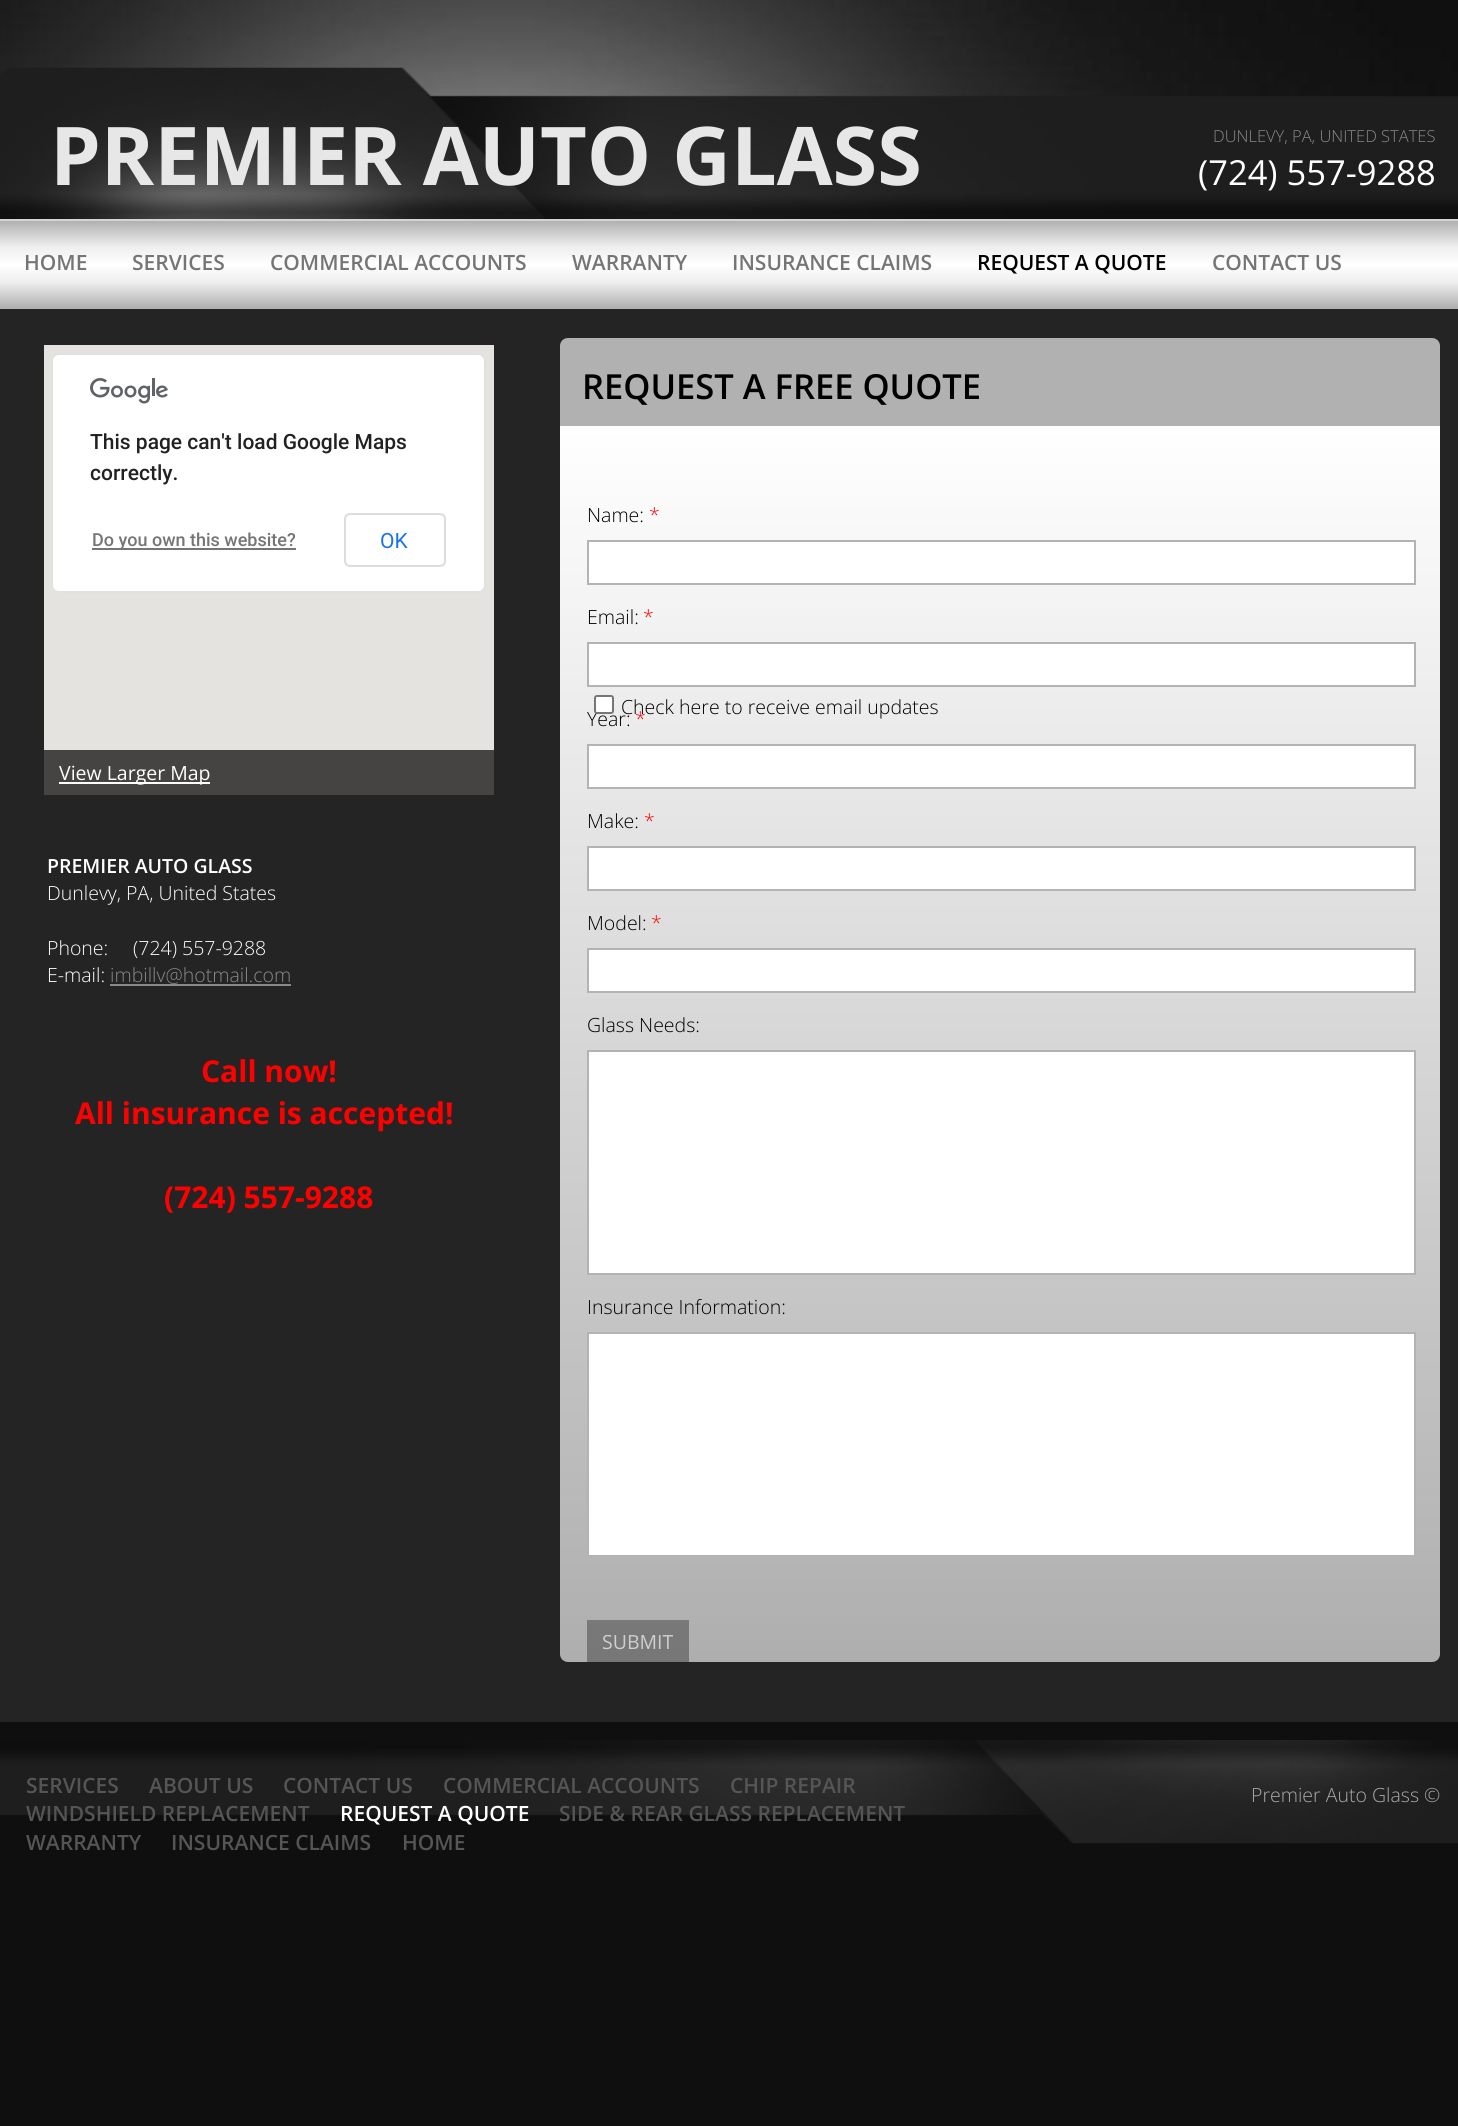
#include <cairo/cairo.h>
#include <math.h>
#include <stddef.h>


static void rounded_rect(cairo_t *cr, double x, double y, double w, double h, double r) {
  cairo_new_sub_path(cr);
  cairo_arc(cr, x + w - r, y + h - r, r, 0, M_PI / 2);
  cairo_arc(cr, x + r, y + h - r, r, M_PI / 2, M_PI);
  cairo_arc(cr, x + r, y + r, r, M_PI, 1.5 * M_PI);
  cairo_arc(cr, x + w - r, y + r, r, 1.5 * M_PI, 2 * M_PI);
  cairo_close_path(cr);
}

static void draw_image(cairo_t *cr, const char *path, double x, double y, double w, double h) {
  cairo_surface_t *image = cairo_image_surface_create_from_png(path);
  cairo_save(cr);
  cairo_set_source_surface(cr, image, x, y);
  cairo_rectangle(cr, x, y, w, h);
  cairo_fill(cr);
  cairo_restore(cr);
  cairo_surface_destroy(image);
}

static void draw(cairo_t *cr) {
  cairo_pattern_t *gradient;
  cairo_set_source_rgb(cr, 15 / 255.0, 15 / 255.0, 15 / 255.0);
  cairo_paint(cr);
  draw_image(cr, "images/1.png", 0, 0, 1458, 97);
  cairo_set_source_rgb(cr, 36 / 255.0, 36 / 255.0, 36 / 255.0);
  cairo_rectangle(cr, 0, 309, 1458, 1413);
  cairo_fill(cr);
  draw_image(cr, "images/2.png", 0, 67, 1458, 152);
  gradient = cairo_pattern_create_linear(734, 220, 734, 309);
  cairo_pattern_add_color_stop_rgba(gradient, 0, 174 / 255.0, 174 / 255.0, 174 / 255.0, 1);
  cairo_pattern_add_color_stop_rgba(gradient, 0.3, 238 / 255.0, 238 / 255.0, 238 / 255.0, 1);
  cairo_pattern_add_color_stop_rgba(gradient, 0.5, 1, 1, 1, 1);
  cairo_pattern_add_color_stop_rgba(gradient, 0.7, 238 / 255.0, 238 / 255.0, 238 / 255.0, 1);
  cairo_pattern_add_color_stop_rgba(gradient, 1, 174 / 255.0, 174 / 255.0, 174 / 255.0, 1);
  cairo_set_source(cr, gradient);
  cairo_pattern_destroy(gradient);
  cairo_rectangle(cr, 0, 221, 1458, 88);
  cairo_fill(cr);
  cairo_set_source_rgb(cr, 212 / 255.0, 212 / 255.0, 212 / 255.0);
  cairo_rectangle(cr, 0, 219, 1458, 2);
  cairo_fill(cr);
  cairo_set_source_rgb(cr, 177 / 255.0, 177 / 255.0, 177 / 255.0);
  cairo_new_path(cr);
  cairo_move_to(cr, 568, 338);
  cairo_line_to(cr, 1432, 338);
  cairo_curve_to(cr, 1436.5, 338, 1440, 341.5, 1440, 346);
  cairo_line_to(cr, 1440, 426);
  cairo_line_to(cr, 560, 426);
  cairo_line_to(cr, 560, 346);
  cairo_curve_to(cr, 560, 341.5, 563.5, 338, 568, 338);
  cairo_close_path(cr);
  cairo_fill(cr);
  cairo_set_source_rgb(cr, 229 / 255.0, 227 / 255.0, 223 / 255.0);
  cairo_rectangle(cr, 44, 345, 450, 405);
  cairo_fill(cr);
  cairo_set_source_rgb(cr, 1, 1, 1);
  rounded_rect(cr, 51, 353, 435, 240, 8);
  cairo_fill(cr);
  rounded_rect(cr, 52, 354, 433, 238, 7);
  cairo_set_source_rgba(cr, 0, 0, 0, 0.12);
  cairo_stroke(cr);
  draw_image(cr, "images/3.png", 90, 378, 78, 26);
  cairo_set_source_rgb(cr, 117 / 255.0, 117 / 255.0, 117 / 255.0);
  cairo_rectangle(cr, 92, 548, 204, 2);
  cairo_fill(cr);
  rounded_rect(cr, 345, 514, 100, 52, 5);
  cairo_set_source_rgb(cr, 218 / 255.0, 220 / 255.0, 224 / 255.0);
  cairo_stroke(cr);
  cairo_set_source_rgb(cr, 69 / 255.0, 68 / 255.0, 67 / 255.0);
  cairo_rectangle(cr, 44, 750, 450, 45);
  cairo_fill(cr);
  cairo_set_source_rgb(cr, 1, 1, 1);
  cairo_rectangle(cr, 59, 782, 151, 2);
  cairo_fill(cr);
  gradient = cairo_pattern_create_linear(1000, 426, 1000, 1662);
  cairo_pattern_add_color_stop_rgba(gradient, 0, 1, 1, 1, 1);
  cairo_pattern_add_color_stop_rgba(gradient, 1, 174 / 255.0, 174 / 255.0, 174 / 255.0, 1);
  cairo_set_source(cr, gradient);
  cairo_pattern_destroy(gradient);
  cairo_new_path(cr);
  cairo_move_to(cr, 560, 426);
  cairo_line_to(cr, 1440, 426);
  cairo_line_to(cr, 1440, 1654);
  cairo_curve_to(cr, 1440, 1658.5, 1436.5, 1662, 1432, 1662);
  cairo_line_to(cr, 568, 1662);
  cairo_curve_to(cr, 563.5, 1662, 560, 1658.5, 560, 1654);
  cairo_close_path(cr);
  cairo_fill(cr);
  gradient = cairo_pattern_create_linear(1000, 426, 1000, 1662);
  cairo_pattern_add_color_stop_rgba(gradient, 0, 168 / 255.0, 168 / 255.0, 168 / 255.0, 1);
  cairo_pattern_add_color_stop_rgba(gradient, 1, 119 / 255.0, 119 / 255.0, 119 / 255.0, 1);
  cairo_set_source(cr, gradient);
  cairo_pattern_destroy(gradient);
  cairo_rectangle(cr, 587, 1620, 102, 42);
  cairo_fill(cr);
  cairo_set_source_rgb(cr, 1, 1, 1);
  cairo_rectangle(cr, 588, 541, 827, 43);
  cairo_fill_preserve(cr);
  cairo_set_source_rgb(cr, 179 / 255.0, 179 / 255.0, 179 / 255.0);
  cairo_stroke(cr);
  cairo_set_source_rgb(cr, 1, 1, 1);
  cairo_rectangle(cr, 588, 643, 827, 43);
  cairo_fill_preserve(cr);
  cairo_set_source_rgb(cr, 179 / 255.0, 179 / 255.0, 179 / 255.0);
  cairo_stroke(cr);
  cairo_set_source_rgb(cr, 1, 1, 1);
  cairo_rectangle(cr, 588, 745, 827, 43);
  cairo_fill_preserve(cr);
  cairo_set_source_rgb(cr, 179 / 255.0, 179 / 255.0, 179 / 255.0);
  cairo_stroke(cr);
  cairo_set_source_rgb(cr, 1, 1, 1);
  cairo_rectangle(cr, 588, 847, 827, 43);
  cairo_fill_preserve(cr);
  cairo_set_source_rgb(cr, 179 / 255.0, 179 / 255.0, 179 / 255.0);
  cairo_stroke(cr);
  cairo_set_source_rgb(cr, 137 / 255.0, 137 / 255.0, 137 / 255.0);
  cairo_rectangle(cr, 110, 984, 181, 2);
  cairo_fill(cr);
  cairo_set_source_rgb(cr, 1, 1, 1);
  cairo_rectangle(cr, 588, 949, 827, 43);
  cairo_fill_preserve(cr);
  cairo_set_source_rgb(cr, 179 / 255.0, 179 / 255.0, 179 / 255.0);
  cairo_stroke(cr);
  cairo_set_source_rgb(cr, 1, 1, 1);
  cairo_rectangle(cr, 588, 1051, 827, 223);
  cairo_fill_preserve(cr);
  cairo_set_source_rgb(cr, 179 / 255.0, 179 / 255.0, 179 / 255.0);
  cairo_stroke(cr);
  cairo_set_source_rgb(cr, 1, 1, 1);
  cairo_rectangle(cr, 588, 1333, 827, 223);
  cairo_fill_preserve(cr);
  cairo_set_source_rgb(cr, 179 / 255.0, 179 / 255.0, 179 / 255.0);
  cairo_stroke(cr);
  draw_image(cr, "images/4.png", 0, 1740, 1458, 104);
  cairo_select_font_face(cr, "Open Sans", CAIRO_FONT_SLANT_NORMAL, CAIRO_FONT_WEIGHT_BOLD);
  cairo_set_font_size(cr, 81);
  cairo_set_source_rgb(cr, 231 / 255.0, 231 / 255.0, 231 / 255.0);
  cairo_move_to(cr, 50, 185);
  cairo_show_text(cr, "PREMIER AUTO GLASS");
  cairo_select_font_face(cr, "Open Sans Light", CAIRO_FONT_SLANT_NORMAL, CAIRO_FONT_WEIGHT_NORMAL);
  cairo_set_font_size(cr, 16.5);
  cairo_set_source_rgb(cr, 137 / 255.0, 137 / 255.0, 137 / 255.0);
  cairo_move_to(cr, 1213, 142);
  cairo_show_text(cr, "DUNLEVY, PA, UNITED STATES");
  cairo_select_font_face(cr, "Open Sans", CAIRO_FONT_SLANT_NORMAL, CAIRO_FONT_WEIGHT_NORMAL);
  cairo_set_font_size(cr, 34.5);
  cairo_set_source_rgb(cr, 1, 1, 1);
  cairo_move_to(cr, 1198, 185);
  cairo_show_text(cr, "(724) 557-9288");
  cairo_select_font_face(cr, "Open Sans SemiBold", CAIRO_FONT_SLANT_NORMAL, CAIRO_FONT_WEIGHT_NORMAL);
  cairo_set_font_size(cr, 21);
  cairo_set_source_rgb(cr, 117 / 255.0, 117 / 255.0, 117 / 255.0);
  cairo_move_to(cr, 24, 270);
  cairo_show_text(cr, "HOME");
  cairo_move_to(cr, 132, 270);
  cairo_show_text(cr, "SERVICES");
  cairo_move_to(cr, 270, 270);
  cairo_show_text(cr, "COMMERCIAL ACCOUNTS");
  cairo_move_to(cr, 572, 270);
  cairo_show_text(cr, "WARRANTY");
  cairo_move_to(cr, 732, 270);
  cairo_show_text(cr, "INSURANCE CLAIMS");
  cairo_set_source_rgb(cr, 0, 0, 0);
  cairo_move_to(cr, 977, 270);
  cairo_show_text(cr, "REQUEST A QUOTE");
  cairo_set_source_rgb(cr, 117 / 255.0, 117 / 255.0, 117 / 255.0);
  cairo_move_to(cr, 1212, 270);
  cairo_show_text(cr, "CONTACT US");
  cairo_set_font_size(cr, 34.5);
  cairo_set_source_rgb(cr, 0, 0, 0);
  cairo_move_to(cr, 582, 399);
  cairo_show_text(cr, "REQUEST A FREE QUOTE");
  cairo_select_font_face(cr, "Roboto Medium", CAIRO_FONT_SLANT_NORMAL, CAIRO_FONT_WEIGHT_NORMAL);
  cairo_set_font_size(cr, 21);
  cairo_set_source_rgb(cr, 33 / 255.0, 33 / 255.0, 33 / 255.0);
  cairo_move_to(cr, 90, 449);
  cairo_show_text(cr, "This page can't load Google Maps");
  cairo_move_to(cr, 90, 480);
  cairo_show_text(cr, "correctly.");
  cairo_set_font_size(cr, 18);
  cairo_set_source_rgb(cr, 117 / 255.0, 117 / 255.0, 117 / 255.0);
  cairo_move_to(cr, 92, 546);
  cairo_show_text(cr, "Do you own this website?");
  cairo_select_font_face(cr, "Roboto", CAIRO_FONT_SLANT_NORMAL, CAIRO_FONT_WEIGHT_NORMAL);
  cairo_set_font_size(cr, 21);
  cairo_set_source_rgb(cr, 26 / 255.0, 115 / 255.0, 232 / 255.0);
  cairo_move_to(cr, 380, 548);
  cairo_show_text(cr, "OK");
  cairo_select_font_face(cr, "Open Sans", CAIRO_FONT_SLANT_NORMAL, CAIRO_FONT_WEIGHT_NORMAL);
  cairo_set_font_size(cr, 19.5);
  cairo_set_source_rgb(cr, 1, 1, 1);
  cairo_move_to(cr, 59, 780);
  cairo_show_text(cr, "View Larger Map");
  cairo_select_font_face(cr, "Open Sans Light", CAIRO_FONT_SLANT_NORMAL, CAIRO_FONT_WEIGHT_NORMAL);
  cairo_set_source_rgb(cr, 0, 0, 0);
  cairo_move_to(cr, 587, 522);
  cairo_show_text(cr, "Name:");
  cairo_set_source_rgb(cr, 1, 0, 0);
  cairo_move_to(cr, 649, 522);
  cairo_show_text(cr, "*");
  cairo_set_source_rgb(cr, 0, 0, 0);
  cairo_move_to(cr, 587, 624);
  cairo_show_text(cr, "Email:");
  cairo_set_source_rgb(cr, 1, 0, 0);
  cairo_move_to(cr, 643, 624);
  cairo_show_text(cr, "*");
  cairo_set_source_rgb(cr, 0, 0, 0);
  cairo_move_to(cr, 587, 726);
  cairo_show_text(cr, "Year:");
  cairo_set_source_rgb(cr, 1, 1, 1);
  rounded_rect(cr, 595, 696, 18, 17, 2);
  cairo_fill_preserve(cr);
  cairo_set_source_rgb(cr, 118 / 255.0, 118 / 255.0, 118 / 255.0);
  cairo_stroke(cr);
  cairo_set_source_rgb(cr, 1, 0, 0);
  cairo_move_to(cr, 635, 726);
  cairo_show_text(cr, "*");
  cairo_set_source_rgb(cr, 0, 0, 0);
  cairo_move_to(cr, 621, 714);
  cairo_show_text(cr, "Check here to receive email updates");
  cairo_move_to(cr, 587, 828);
  cairo_show_text(cr, "Make:");
  cairo_set_source_rgb(cr, 1, 0, 0);
  cairo_move_to(cr, 644, 828);
  cairo_show_text(cr, "*");
  cairo_select_font_face(cr, "Open Sans SemiBold", CAIRO_FONT_SLANT_NORMAL, CAIRO_FONT_WEIGHT_NORMAL);
  cairo_set_source_rgb(cr, 1, 1, 1);
  cairo_move_to(cr, 47, 873);
  cairo_show_text(cr, "PREMIER AUTO GLASS");
  cairo_select_font_face(cr, "Open Sans Light", CAIRO_FONT_SLANT_NORMAL, CAIRO_FONT_WEIGHT_NORMAL);
  cairo_move_to(cr, 47, 900);
  cairo_show_text(cr, "Dunlevy, PA, United States");
  cairo_move_to(cr, 47, 955);
  cairo_show_text(cr, "Phone:");
  cairo_move_to(cr, 133, 955);
  cairo_show_text(cr, "(724) 557-9288");
  cairo_move_to(cr, 47, 982);
  cairo_show_text(cr, "E-mail:");
  cairo_set_source_rgb(cr, 137 / 255.0, 137 / 255.0, 137 / 255.0);
  cairo_move_to(cr, 110, 982);
  cairo_show_text(cr, "imbillv@hotmail.com");
  cairo_set_source_rgb(cr, 0, 0, 0);
  cairo_move_to(cr, 587, 930);
  cairo_show_text(cr, "Model:");
  cairo_set_source_rgb(cr, 1, 0, 0);
  cairo_move_to(cr, 651, 930);
  cairo_show_text(cr, "*");
  cairo_set_source_rgb(cr, 0, 0, 0);
  cairo_move_to(cr, 587, 1032);
  cairo_show_text(cr, "Glass Needs:");
  cairo_select_font_face(cr, "Open Sans", CAIRO_FONT_SLANT_NORMAL, CAIRO_FONT_WEIGHT_BOLD);
  cairo_set_font_size(cr, 30);
  cairo_set_source_rgb(cr, 1, 0, 0);
  cairo_move_to(cr, 201, 1082);
  cairo_show_text(cr, "Call now!");
  cairo_move_to(cr, 75, 1124);
  cairo_show_text(cr, "All insurance is accepted!");
  cairo_move_to(cr, 164, 1208);
  cairo_show_text(cr, "(724) 557-9288");
  cairo_select_font_face(cr, "Open Sans Light", CAIRO_FONT_SLANT_NORMAL, CAIRO_FONT_WEIGHT_NORMAL);
  cairo_set_font_size(cr, 19.5);
  cairo_set_source_rgb(cr, 0, 0, 0);
  cairo_move_to(cr, 587, 1314);
  cairo_show_text(cr, "Insurance Information:");
  cairo_select_font_face(cr, "Open Sans", CAIRO_FONT_SLANT_NORMAL, CAIRO_FONT_WEIGHT_NORMAL);
  cairo_set_source_rgb(cr, 207 / 255.0, 207 / 255.0, 207 / 255.0);
  cairo_move_to(cr, 602, 1649);
  cairo_show_text(cr, "SUBMIT");
  cairo_select_font_face(cr, "Open Sans SemiBold", CAIRO_FONT_SLANT_NORMAL, CAIRO_FONT_WEIGHT_NORMAL);
  cairo_set_font_size(cr, 21);
  cairo_set_source_rgb(cr, 85 / 255.0, 85 / 255.0, 85 / 255.0);
  cairo_move_to(cr, 26, 1793);
  cairo_show_text(cr, "SERVICES");
  cairo_move_to(cr, 149, 1793);
  cairo_show_text(cr, "ABOUT US");
  cairo_move_to(cr, 283, 1793);
  cairo_show_text(cr, "CONTACT US");
  cairo_move_to(cr, 443, 1793);
  cairo_show_text(cr, "COMMERCIAL ACCOUNTS");
  cairo_move_to(cr, 730, 1793);
  cairo_show_text(cr, "CHIP REPAIR");
  cairo_move_to(cr, 26, 1821);
  cairo_show_text(cr, "WINDSHIELD REPLACEMENT");
  cairo_set_source_rgb(cr, 1, 1, 1);
  cairo_move_to(cr, 340, 1821);
  cairo_show_text(cr, "REQUEST A QUOTE");
  cairo_set_source_rgb(cr, 85 / 255.0, 85 / 255.0, 85 / 255.0);
  cairo_move_to(cr, 559, 1821);
  cairo_show_text(cr, "SIDE & REAR GLASS REPLACEMENT");
  cairo_move_to(cr, 26, 1850);
  cairo_show_text(cr, "WARRANTY");
  cairo_move_to(cr, 171, 1850);
  cairo_show_text(cr, "INSURANCE CLAIMS");
  cairo_move_to(cr, 402, 1850);
  cairo_show_text(cr, "HOME");
  cairo_select_font_face(cr, "Open Sans Light", CAIRO_FONT_SLANT_NORMAL, CAIRO_FONT_WEIGHT_NORMAL);
  cairo_set_font_size(cr, 19.5);
  cairo_set_source_rgb(cr, 169 / 255.0, 169 / 255.0, 169 / 255.0);
  cairo_move_to(cr, 1251, 1802);
  cairo_show_text(cr, "Premier Auto Glass ©");
}

int main(void) {
  cairo_surface_t *surface = cairo_image_surface_create(CAIRO_FORMAT_RGB24, 1458, 2126);
  cairo_t *cr = cairo_create(surface);
  cairo_font_options_t *options = cairo_font_options_create();
  cairo_font_options_set_hint_metrics(options, CAIRO_HINT_METRICS_OFF);
  cairo_font_options_set_hint_style(options, CAIRO_HINT_STYLE_NONE);
  cairo_set_font_options(cr, options);
  cairo_set_miter_limit(cr, 4);
  draw(cr);
  cairo_surface_write_to_png(surface, "out.png");
  cairo_font_options_destroy(options);
  cairo_destroy(cr);
  cairo_surface_destroy(surface);
  return 0;
}
